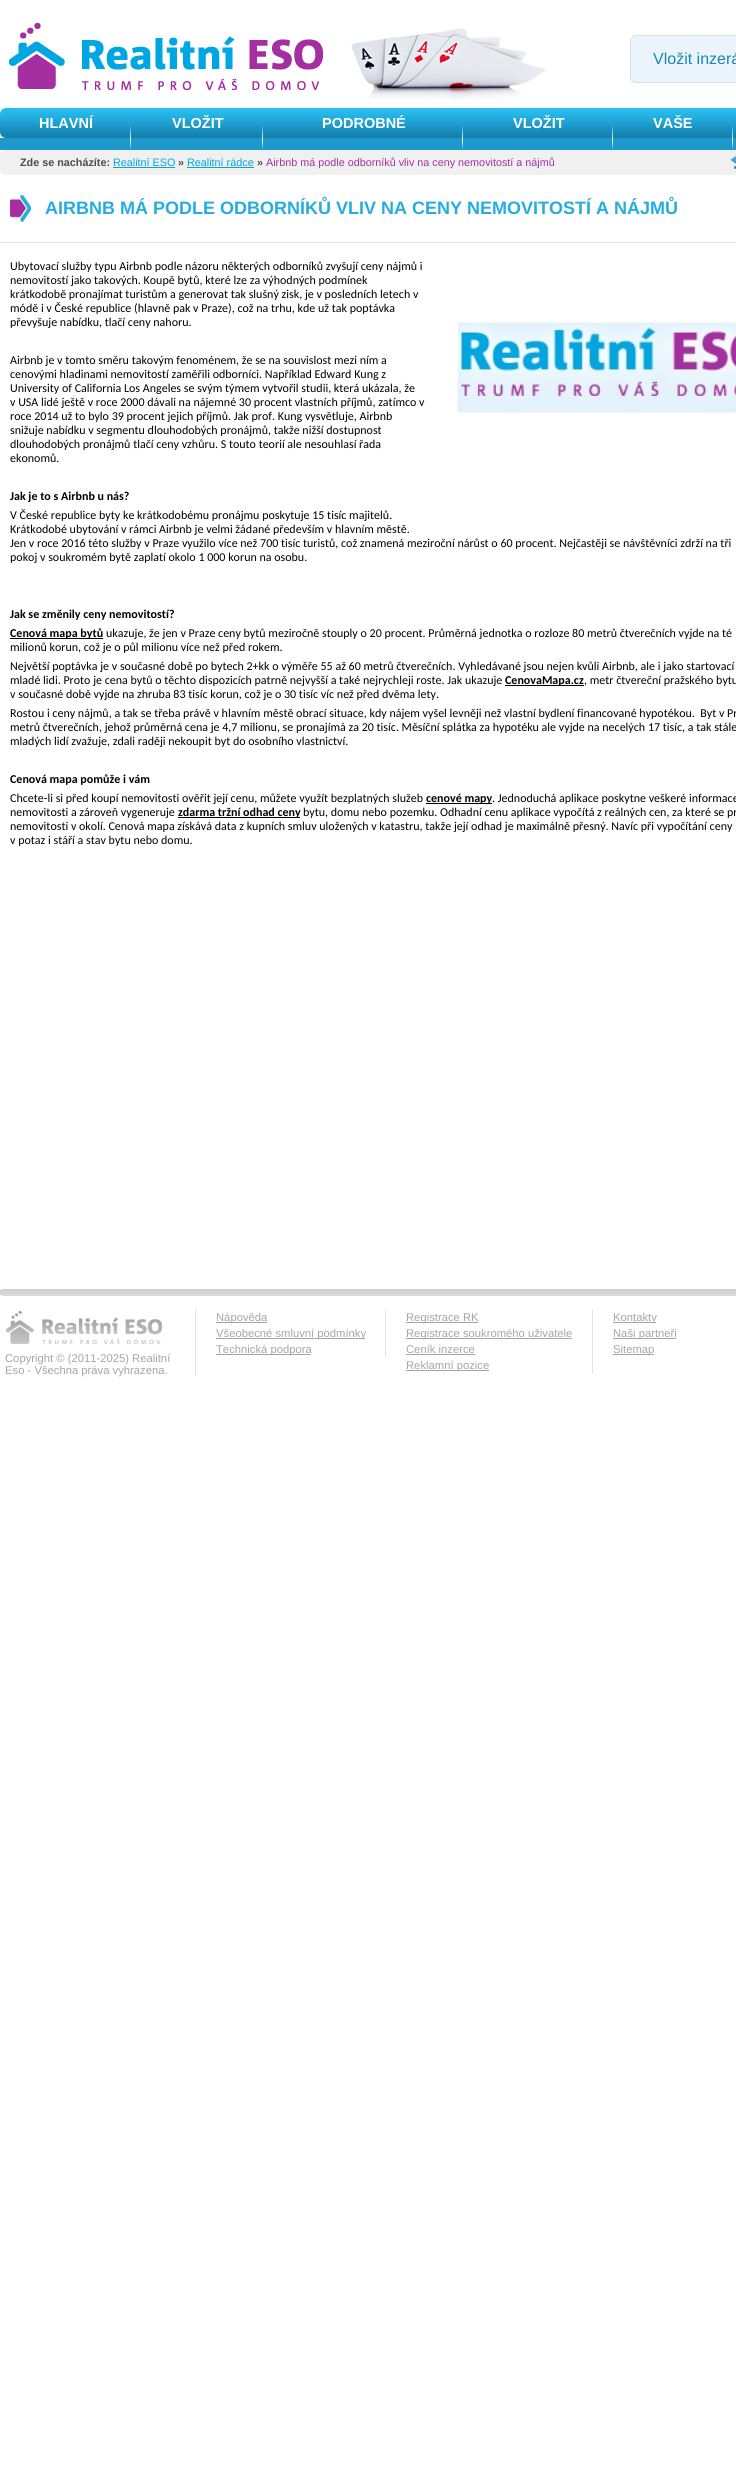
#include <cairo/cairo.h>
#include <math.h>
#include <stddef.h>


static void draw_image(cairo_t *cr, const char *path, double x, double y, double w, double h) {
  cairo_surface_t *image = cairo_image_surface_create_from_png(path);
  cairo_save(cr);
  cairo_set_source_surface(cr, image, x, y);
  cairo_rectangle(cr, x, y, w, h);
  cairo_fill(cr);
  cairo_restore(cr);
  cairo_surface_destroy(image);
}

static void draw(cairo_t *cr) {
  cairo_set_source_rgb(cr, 1, 1, 1);
  cairo_paint(cr);
  draw_image(cr, "images/1.png", 351, 28, 195, 73);
  draw_image(cr, "images/2.png", 9, 23, 314, 67);
  draw_image(cr, "images/3.png", 630, 35, 106, 48);
  cairo_set_source_rgb(cr, 28 / 255.0, 153 / 255.0, 202 / 255.0);
  cairo_rectangle(cr, 0, 138, 736, 12);
  cairo_fill(cr);
  draw_image(cr, "images/4.png", 0, 108, 736, 30);
  draw_image(cr, "images/5.png", 130, 126, 1, 24);
  draw_image(cr, "images/5.png", 262, 126, 1, 24);
  draw_image(cr, "images/5.png", 462, 126, 1, 24);
  draw_image(cr, "images/5.png", 612, 126, 1, 24);
  draw_image(cr, "images/5.png", 732, 126, 1, 24);
  cairo_set_source_rgb(cr, 240 / 255.0, 240 / 255.0, 240 / 255.0);
  cairo_rectangle(cr, 4, 150, 732, 25);
  cairo_fill(cr);
  draw_image(cr, "images/6.png", 0, 150, 4, 25);
  cairo_set_source_rgb(cr, 0, 166 / 255.0, 226 / 255.0);
  cairo_rectangle(cr, 113, 167, 62, 1);
  cairo_fill(cr);
  cairo_rectangle(cr, 187, 167, 67, 1);
  cairo_fill(cr);
  draw_image(cr, "images/7.png", 730, 156, 6, 13);
  draw_image(cr, "images/8.png", 10, 195, 21, 27);
  cairo_set_source_rgb(cr, 227 / 255.0, 227 / 255.0, 227 / 255.0);
  cairo_rectangle(cr, 0, 242, 736, 1);
  cairo_fill(cr);
  draw_image(cr, "images/9.png", 457, 322, 279, 92);
  cairo_set_source_rgb(cr, 0, 0, 0);
  cairo_rectangle(cr, 10, 638, 93, 1);
  cairo_fill(cr);
  cairo_rectangle(cr, 505, 685, 79, 1);
  cairo_fill(cr);
  cairo_rectangle(cr, 426, 803, 66, 1);
  cairo_fill(cr);
  cairo_rectangle(cr, 178, 817, 122, 1);
  cairo_fill(cr);
  draw_image(cr, "images/10.png", 0, 1289, 736, 7);
  cairo_set_source_rgb(cr, 228 / 255.0, 228 / 255.0, 228 / 255.0);
  cairo_rectangle(cr, 385, 1309, 1, 48);
  cairo_fill(cr);
  cairo_set_source_rgb(cr, 167 / 255.0, 165 / 255.0, 165 / 255.0);
  cairo_rectangle(cr, 216, 1322, 51, 1);
  cairo_fill(cr);
  cairo_rectangle(cr, 216, 1338, 149, 1);
  cairo_fill(cr);
  cairo_rectangle(cr, 216, 1354, 95, 1);
  cairo_fill(cr);
  cairo_set_source_rgb(cr, 228 / 255.0, 228 / 255.0, 228 / 255.0);
  cairo_rectangle(cr, 592, 1309, 1, 64);
  cairo_fill(cr);
  cairo_set_source_rgb(cr, 167 / 255.0, 165 / 255.0, 165 / 255.0);
  cairo_rectangle(cr, 406, 1322, 72, 1);
  cairo_fill(cr);
  cairo_rectangle(cr, 406, 1338, 166, 1);
  cairo_fill(cr);
  cairo_rectangle(cr, 406, 1354, 69, 1);
  cairo_fill(cr);
  cairo_rectangle(cr, 406, 1370, 83, 1);
  cairo_fill(cr);
  cairo_rectangle(cr, 613, 1322, 43, 1);
  cairo_fill(cr);
  cairo_rectangle(cr, 613, 1338, 63, 1);
  cairo_fill(cr);
  cairo_rectangle(cr, 613, 1354, 41, 1);
  cairo_fill(cr);
  cairo_set_source_rgb(cr, 228 / 255.0, 228 / 255.0, 228 / 255.0);
  cairo_rectangle(cr, 195, 1309, 1, 67);
  cairo_fill(cr);
  draw_image(cr, "images/11.png", 6, 1311, 156, 33);
  cairo_select_font_face(cr, "Liberation Sans", CAIRO_FONT_SLANT_NORMAL, CAIRO_FONT_WEIGHT_NORMAL);
  cairo_set_font_size(cr, 16);
  cairo_set_source_rgb(cr, 22 / 255.0, 136 / 255.0, 185 / 255.0);
  cairo_move_to(cr, 653, 64);
  cairo_show_text(cr, "Vložit inzerá");
  cairo_select_font_face(cr, "Liberation Sans", CAIRO_FONT_SLANT_NORMAL, CAIRO_FONT_WEIGHT_BOLD);
  cairo_set_font_size(cr, 14.5);
  cairo_set_source_rgb(cr, 1, 1, 1);
  cairo_move_to(cr, 39, 128);
  cairo_show_text(cr, "HLAVNÍ");
  cairo_move_to(cr, 172, 128);
  cairo_show_text(cr, "VLOŽIT");
  cairo_move_to(cr, 322, 128);
  cairo_show_text(cr, "PODROBNÉ");
  cairo_move_to(cr, 513, 128);
  cairo_show_text(cr, "VLOŽIT");
  cairo_move_to(cr, 653, 128);
  cairo_show_text(cr, "VAŠE");
  cairo_set_font_size(cr, 10.8);
  cairo_set_source_rgb(cr, 76 / 255.0, 76 / 255.0, 76 / 255.0);
  cairo_move_to(cr, 20, 166);
  cairo_show_text(cr, "Zde se nacházíte:");
  cairo_select_font_face(cr, "Liberation Sans", CAIRO_FONT_SLANT_NORMAL, CAIRO_FONT_WEIGHT_NORMAL);
  cairo_set_source_rgb(cr, 0, 166 / 255.0, 226 / 255.0);
  cairo_move_to(cr, 113, 166);
  cairo_show_text(cr, "Realitní ESO");
  cairo_select_font_face(cr, "Liberation Sans", CAIRO_FONT_SLANT_NORMAL, CAIRO_FONT_WEIGHT_BOLD);
  cairo_set_source_rgb(cr, 76 / 255.0, 76 / 255.0, 76 / 255.0);
  cairo_move_to(cr, 178, 166);
  cairo_show_text(cr, "»");
  cairo_select_font_face(cr, "Liberation Sans", CAIRO_FONT_SLANT_NORMAL, CAIRO_FONT_WEIGHT_NORMAL);
  cairo_set_source_rgb(cr, 0, 166 / 255.0, 226 / 255.0);
  cairo_move_to(cr, 187, 166);
  cairo_show_text(cr, "Realitní rádce");
  cairo_select_font_face(cr, "Liberation Sans", CAIRO_FONT_SLANT_NORMAL, CAIRO_FONT_WEIGHT_BOLD);
  cairo_set_source_rgb(cr, 76 / 255.0, 76 / 255.0, 76 / 255.0);
  cairo_move_to(cr, 257, 166);
  cairo_show_text(cr, "»");
  cairo_select_font_face(cr, "Liberation Sans", CAIRO_FONT_SLANT_NORMAL, CAIRO_FONT_WEIGHT_NORMAL);
  cairo_set_source_rgb(cr, 165 / 255.0, 47 / 255.0, 161 / 255.0);
  cairo_move_to(cr, 266, 166);
  cairo_show_text(cr, "Airbnb má podle odborníků vliv na ceny nemovitostí a nájmů");
  cairo_select_font_face(cr, "Liberation Sans", CAIRO_FONT_SLANT_NORMAL, CAIRO_FONT_WEIGHT_BOLD);
  cairo_set_font_size(cr, 18);
  cairo_set_source_rgb(cr, 38 / 255.0, 173 / 255.0, 223 / 255.0);
  cairo_move_to(cr, 45, 214);
  cairo_show_text(cr, "AIRBNB MÁ PODLE ODBORNÍKŮ VLIV NA CENY NEMOVITOSTÍ A NÁJMŮ");
  cairo_select_font_face(cr, "Carlito", CAIRO_FONT_SLANT_NORMAL, CAIRO_FONT_WEIGHT_NORMAL);
  cairo_set_font_size(cr, 12);
  cairo_set_source_rgb(cr, 0, 0, 0);
  cairo_move_to(cr, 10, 270);
  cairo_show_text(cr, "Ubytovací služby typu Airbnb podle názoru některých odborníků zvyšují ceny nájmů i");
  cairo_move_to(cr, 10, 284);
  cairo_show_text(cr, "nemovitostí jako takových. Koupě bytů, které lze za výhodných podmínek");
  cairo_move_to(cr, 10, 298);
  cairo_show_text(cr, "krátkodobě pronajímat turistům a generovat tak slušný zisk, je v posledních letech v");
  cairo_move_to(cr, 10, 312);
  cairo_show_text(cr, "módě i v České republice (hlavně pak v Praze), což na trhu, kde už tak poptávka");
  cairo_move_to(cr, 10, 326);
  cairo_show_text(cr, "převyšuje nabídku, tlačí ceny nahoru.");
  cairo_move_to(cr, 10, 364);
  cairo_show_text(cr, "Airbnb je v tomto směru takovým fenoménem, že se na souvislost mezi ním a");
  cairo_move_to(cr, 10, 378);
  cairo_show_text(cr, "cenovými hladinami nemovitostí zaměřili odborníci. Například Edward Kung z");
  cairo_move_to(cr, 10, 392);
  cairo_show_text(cr, "University of California Los Angeles se svým týmem vytvořil studii, která ukázala, že");
  cairo_move_to(cr, 10, 406);
  cairo_show_text(cr, "v USA lidé ještě v roce 2000 dávali na nájemné 30 procent vlastních příjmů, zatímco v");
  cairo_move_to(cr, 10, 420);
  cairo_show_text(cr, "roce 2014 už to bylo 39 procent jejich příjmů. Jak prof. Kung vysvětluje, Airbnb");
  cairo_move_to(cr, 10, 434);
  cairo_show_text(cr, "snižuje nabídku v segmentu dlouhodobých pronájmů, takže nižší dostupnost");
  cairo_move_to(cr, 10, 448);
  cairo_show_text(cr, "dlouhodobých pronájmů tlačí ceny vzhůru. S touto teorií ale nesouhlasí řada");
  cairo_move_to(cr, 10, 462);
  cairo_show_text(cr, "ekonomů.");
  cairo_select_font_face(cr, "Carlito", CAIRO_FONT_SLANT_NORMAL, CAIRO_FONT_WEIGHT_BOLD);
  cairo_move_to(cr, 10, 500);
  cairo_show_text(cr, "Jak je to s Airbnb u nás?");
  cairo_select_font_face(cr, "Carlito", CAIRO_FONT_SLANT_NORMAL, CAIRO_FONT_WEIGHT_NORMAL);
  cairo_move_to(cr, 10, 519);
  cairo_show_text(cr, "V České republice byty ke krátkodobému pronájmu poskytuje 15 tisíc majitelů.");
  cairo_move_to(cr, 10, 533);
  cairo_show_text(cr, "Krátkodobé ubytování v rámci Airbnb je velmi žádané především v hlavním městě.");
  cairo_move_to(cr, 10, 547);
  cairo_show_text(cr, "Jen v roce 2016 této služby v Praze využilo více než 700 tisíc turistů, což znamená meziroční nárůst o 60 procent. Nejčastěji se návštěvníci zdrží na tři");
  cairo_move_to(cr, 10, 561);
  cairo_show_text(cr, "pokoj v soukromém bytě zaplatí okolo 1 000 korun na osobu.");
  cairo_select_font_face(cr, "Carlito", CAIRO_FONT_SLANT_NORMAL, CAIRO_FONT_WEIGHT_BOLD);
  cairo_move_to(cr, 10, 618);
  cairo_show_text(cr, "Jak se změnily ceny nemovitostí?");
  cairo_move_to(cr, 10, 637);
  cairo_show_text(cr, "Cenová mapa bytů");
  cairo_select_font_face(cr, "Carlito", CAIRO_FONT_SLANT_NORMAL, CAIRO_FONT_WEIGHT_NORMAL);
  cairo_move_to(cr, 106, 637);
  cairo_show_text(cr, "ukazuje, že jen v Praze ceny bytů meziročně stouply o 20 procent. Průměrná jednotka o rozloze 80 metrů čtverečních vyjde na té");
  cairo_move_to(cr, 10, 651);
  cairo_show_text(cr, "milionů korun, což je o půl milionu více než před rokem.");
  cairo_move_to(cr, 10, 670);
  cairo_show_text(cr, "Největší poptávka je v současné době po bytech 2+kk o výměře 55 až 60 metrů čtverečních. Vyhledávané jsou nejen kvůli Airbnb, ale i jako startovací");
  cairo_move_to(cr, 10, 684);
  cairo_show_text(cr, "mladé lidi. Proto je cena bytů o těchto dispozicích patrně nejvyšší a také nejrychleji roste. Jak ukazuje");
  cairo_select_font_face(cr, "Carlito", CAIRO_FONT_SLANT_NORMAL, CAIRO_FONT_WEIGHT_BOLD);
  cairo_move_to(cr, 505, 684);
  cairo_show_text(cr, "CenovaMapa.cz");
  cairo_select_font_face(cr, "Carlito", CAIRO_FONT_SLANT_NORMAL, CAIRO_FONT_WEIGHT_NORMAL);
  cairo_move_to(cr, 584, 684);
  cairo_show_text(cr, ", metr čtvereční pražského bytu");
  cairo_move_to(cr, 10, 698);
  cairo_show_text(cr, "v současné době vyjde na zhruba 83 tisíc korun, což je o 30 tisíc víc než před dvěma lety.");
  cairo_move_to(cr, 10, 717);
  cairo_show_text(cr, "Rostou i ceny nájmů, a tak se třeba právě v hlavním městě obrací situace, kdy nájem vyšel levněji než vlastní bydlení financované hypotékou.  Byt v Pr");
  cairo_move_to(cr, 10, 731);
  cairo_show_text(cr, "metrů čtverečních, jehož průměrná cena je 4,7 milionu, se pronajímá za 20 tisíc. Měsíční splátka za hypotéku ale vyjde na necelých 17 tisíc, a tak stále");
  cairo_move_to(cr, 10, 745);
  cairo_show_text(cr, "mladých lidí zvažuje, zdali raději nekoupit byt do osobního vlastnictví.");
  cairo_select_font_face(cr, "Carlito", CAIRO_FONT_SLANT_NORMAL, CAIRO_FONT_WEIGHT_BOLD);
  cairo_move_to(cr, 10, 783);
  cairo_show_text(cr, "Cenová mapa pomůže i vám");
  cairo_select_font_face(cr, "Carlito", CAIRO_FONT_SLANT_NORMAL, CAIRO_FONT_WEIGHT_NORMAL);
  cairo_move_to(cr, 10, 802);
  cairo_show_text(cr, "Chcete-li si před koupí nemovitosti ověřit její cenu, můžete využít bezplatných služeb");
  cairo_select_font_face(cr, "Carlito", CAIRO_FONT_SLANT_NORMAL, CAIRO_FONT_WEIGHT_BOLD);
  cairo_move_to(cr, 426, 802);
  cairo_show_text(cr, "cenové mapy");
  cairo_select_font_face(cr, "Carlito", CAIRO_FONT_SLANT_NORMAL, CAIRO_FONT_WEIGHT_NORMAL);
  cairo_move_to(cr, 492, 802);
  cairo_show_text(cr, ". Jednoduchá aplikace poskytne veškeré informace");
  cairo_move_to(cr, 10, 816);
  cairo_show_text(cr, "nemovitosti a zároveň vygeneruje");
  cairo_select_font_face(cr, "Carlito", CAIRO_FONT_SLANT_NORMAL, CAIRO_FONT_WEIGHT_BOLD);
  cairo_move_to(cr, 178, 816);
  cairo_show_text(cr, "zdarma tržní odhad ceny");
  cairo_select_font_face(cr, "Carlito", CAIRO_FONT_SLANT_NORMAL, CAIRO_FONT_WEIGHT_NORMAL);
  cairo_move_to(cr, 303, 816);
  cairo_show_text(cr, "bytu, domu nebo pozemku. Odhadní cenu aplikace vypočítá z reálných cen, za které se pr");
  cairo_move_to(cr, 10, 830);
  cairo_show_text(cr, "nemovitosti v okolí. Cenová mapa získává data z kupních smluv uložených v katastru, takže její odhad je maximálně přesný. Navíc při vypočítání ceny");
  cairo_move_to(cr, 10, 844);
  cairo_show_text(cr, "v potaz i stáří a stav bytu nebo domu.");
  cairo_select_font_face(cr, "Liberation Sans", CAIRO_FONT_SLANT_NORMAL, CAIRO_FONT_WEIGHT_NORMAL);
  cairo_set_font_size(cr, 11.25);
  cairo_set_source_rgb(cr, 167 / 255.0, 165 / 255.0, 165 / 255.0);
  cairo_move_to(cr, 216, 1321);
  cairo_show_text(cr, "Nápověda");
  cairo_move_to(cr, 216, 1337);
  cairo_show_text(cr, "Všeobecné smluvní podmínky");
  cairo_move_to(cr, 216, 1353);
  cairo_show_text(cr, "Technická podpora");
  cairo_move_to(cr, 406, 1321);
  cairo_show_text(cr, "Registrace RK");
  cairo_move_to(cr, 406, 1337);
  cairo_show_text(cr, "Registrace soukromého uživatele");
  cairo_move_to(cr, 406, 1353);
  cairo_show_text(cr, "Ceník inzerce");
  cairo_move_to(cr, 406, 1369);
  cairo_show_text(cr, "Reklamní pozice");
  cairo_move_to(cr, 613, 1321);
  cairo_show_text(cr, "Kontakty");
  cairo_move_to(cr, 613, 1337);
  cairo_show_text(cr, "Naši partneři");
  cairo_move_to(cr, 613, 1353);
  cairo_show_text(cr, "Sitemap");
  cairo_move_to(cr, 5, 1362);
  cairo_show_text(cr, "Copyright © (2011-2025) Realitní");
  cairo_move_to(cr, 5, 1374);
  cairo_show_text(cr, "Eso - Všechna práva vyhrazena.");
}

int main(void) {
  cairo_surface_t *surface = cairo_image_surface_create(CAIRO_FORMAT_RGB24, 736, 2473);
  cairo_t *cr = cairo_create(surface);
  cairo_font_options_t *options = cairo_font_options_create();
  cairo_font_options_set_hint_metrics(options, CAIRO_HINT_METRICS_OFF);
  cairo_font_options_set_hint_style(options, CAIRO_HINT_STYLE_NONE);
  cairo_set_font_options(cr, options);
  cairo_set_miter_limit(cr, 4);
  draw(cr);
  cairo_surface_write_to_png(surface, "out.png");
  cairo_font_options_destroy(options);
  cairo_destroy(cr);
  cairo_surface_destroy(surface);
  return 0;
}
